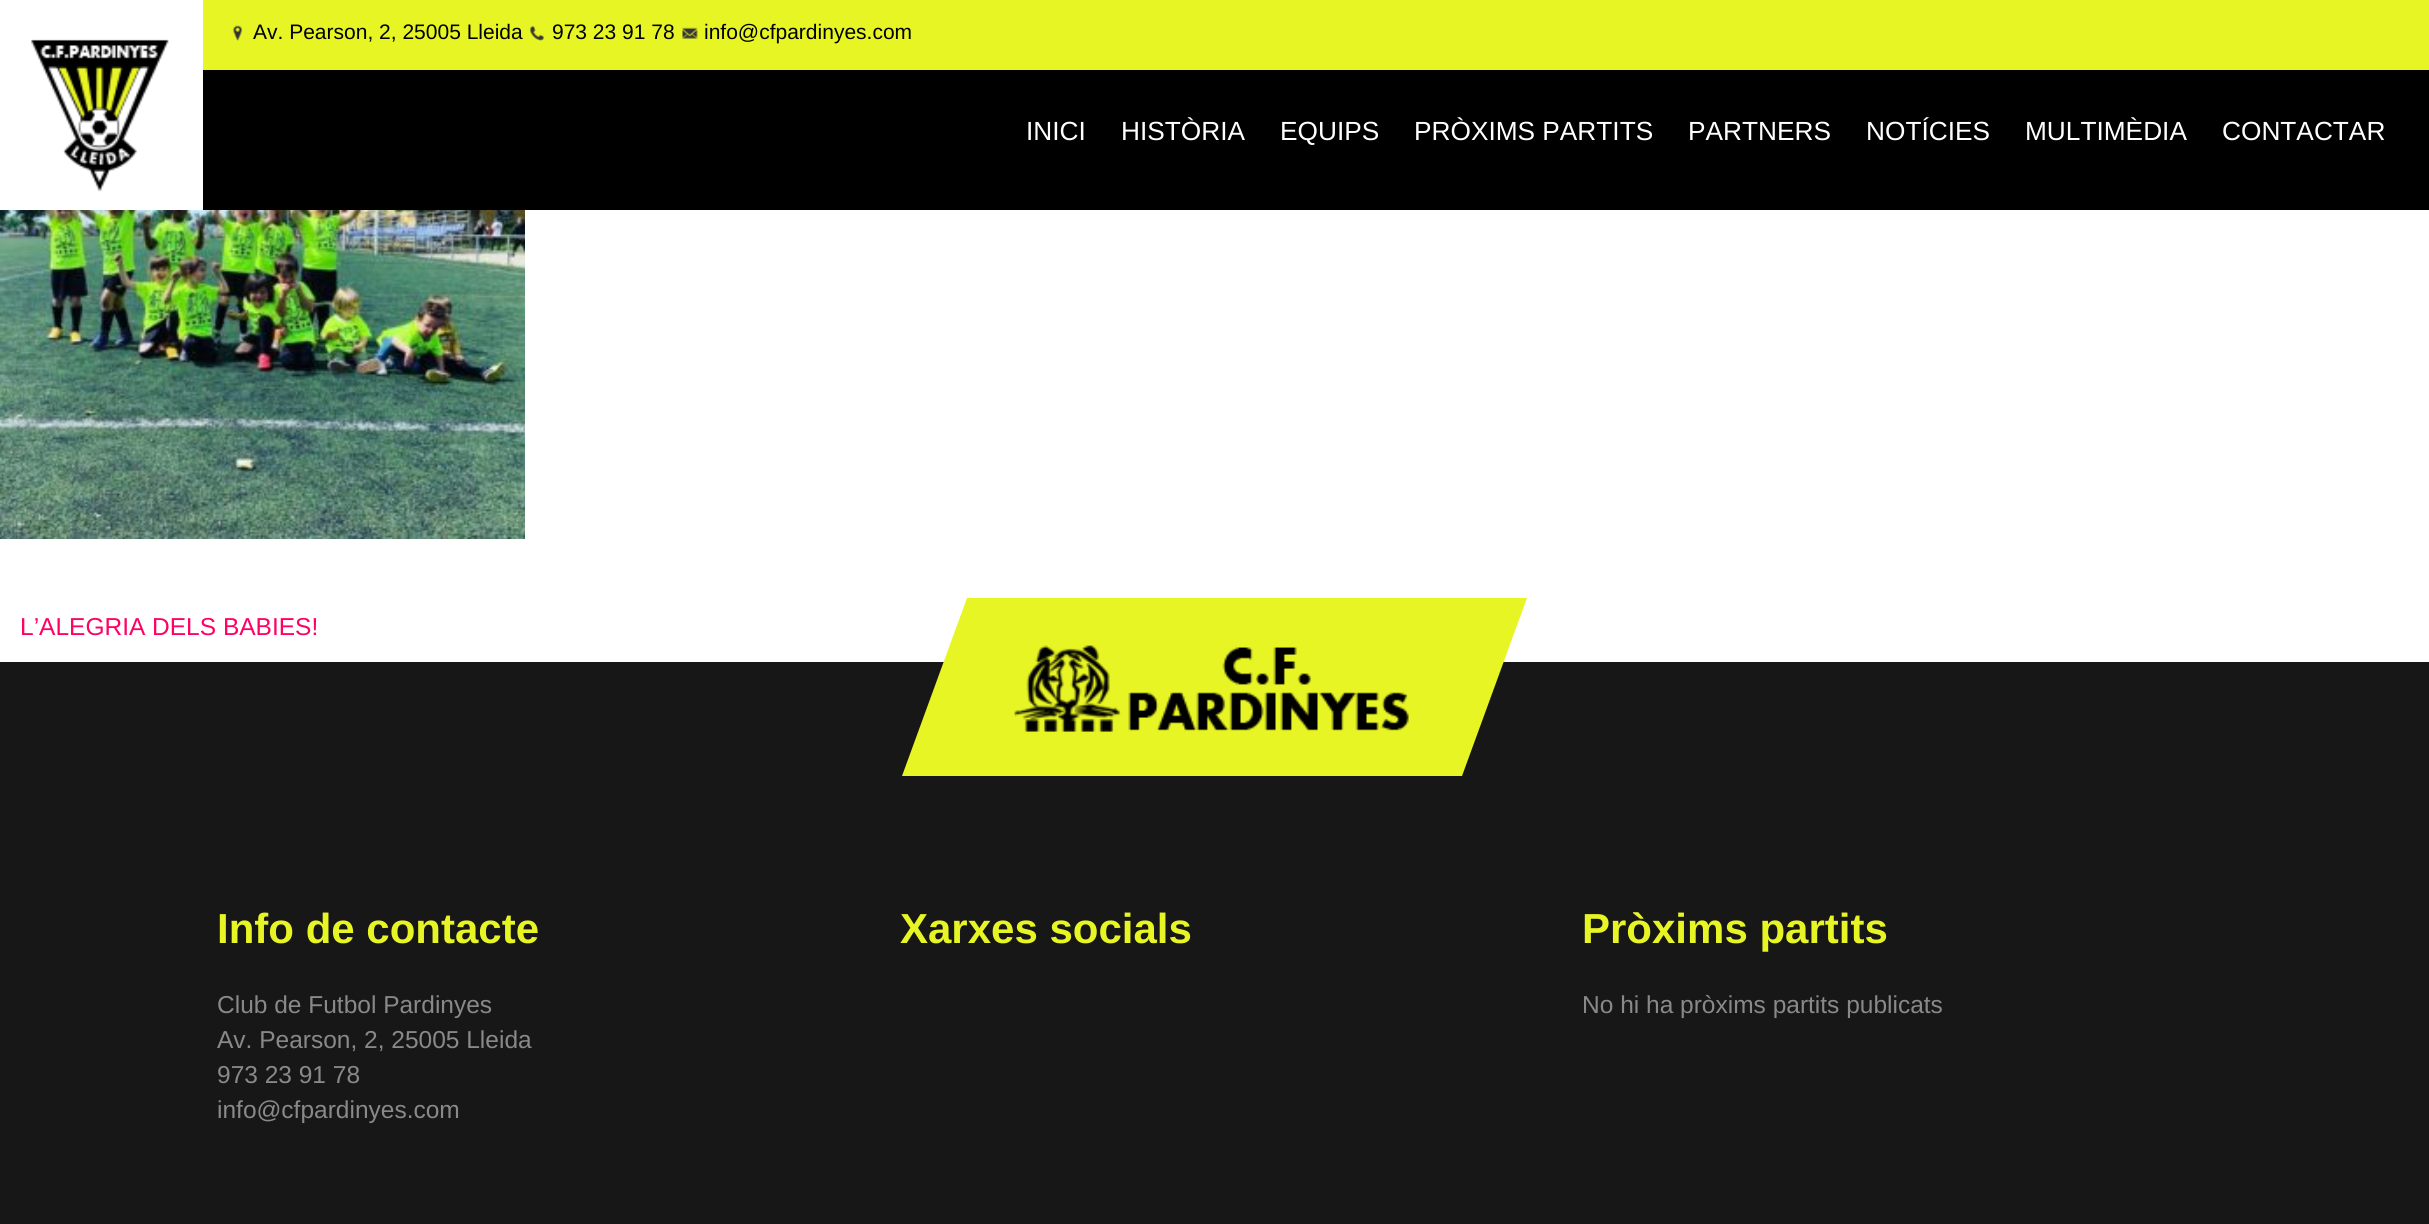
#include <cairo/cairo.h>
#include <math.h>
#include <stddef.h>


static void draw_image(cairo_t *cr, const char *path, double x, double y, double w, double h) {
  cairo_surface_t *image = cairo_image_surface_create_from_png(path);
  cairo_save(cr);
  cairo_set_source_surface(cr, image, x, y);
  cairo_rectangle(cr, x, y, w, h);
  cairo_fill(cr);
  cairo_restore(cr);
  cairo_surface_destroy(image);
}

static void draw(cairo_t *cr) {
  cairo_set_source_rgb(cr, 1, 1, 1);
  cairo_paint(cr);
  cairo_set_source_rgb(cr, 0, 0, 0);
  cairo_rectangle(cr, 203, 70, 2226, 140);
  cairo_fill(cr);
  draw_image(cr, "images/1.png", 31, 39, 138, 153);
  cairo_set_source_rgb(cr, 232 / 255.0, 245 / 255.0, 36 / 255.0);
  cairo_rectangle(cr, 203, 0, 2226, 70);
  cairo_fill(cr);
  draw_image(cr, "images/2.png", 233, 25, 10, 16);
  draw_image(cr, "images/3.png", 529, 25, 15, 16);
  draw_image(cr, "images/4.png", 682, 27, 16, 12);
  draw_image(cr, "images/5.png", 0, 210, 525, 329);
  cairo_set_source_rgb(cr, 23 / 255.0, 23 / 255.0, 23 / 255.0);
  cairo_rectangle(cr, 0, 662, 2429, 562);
  cairo_fill(cr);
  cairo_set_source_rgb(cr, 232 / 255.0, 245 / 255.0, 36 / 255.0);
  cairo_new_path(cr);
  cairo_move_to(cr, 967, 598);
  cairo_line_to(cr, 1527, 598);
  cairo_line_to(cr, 1462, 776);
  cairo_line_to(cr, 902, 776);
  cairo_close_path(cr);
  cairo_fill(cr);
  draw_image(cr, "images/6.png", 1014, 645, 395, 87);
  cairo_select_font_face(cr, "Liberation Sans", CAIRO_FONT_SLANT_NORMAL, CAIRO_FONT_WEIGHT_NORMAL);
  cairo_set_font_size(cr, 21);
  cairo_set_source_rgb(cr, 0, 0, 0);
  cairo_move_to(cr, 253, 39);
  cairo_show_text(cr, "Av. Pearson, 2, 25005 Lleida");
  cairo_move_to(cr, 552, 39);
  cairo_show_text(cr, "973 23 91 78");
  cairo_move_to(cr, 704, 39);
  cairo_show_text(cr, "info@cfpardinyes.com");
  cairo_set_font_size(cr, 26.25);
  cairo_set_source_rgb(cr, 1, 1, 1);
  cairo_move_to(cr, 1026, 140);
  cairo_show_text(cr, "INICI");
  cairo_move_to(cr, 1121, 140);
  cairo_show_text(cr, "HISTÒRIA");
  cairo_move_to(cr, 1280, 140);
  cairo_show_text(cr, "EQUIPS");
  cairo_move_to(cr, 1414, 140);
  cairo_show_text(cr, "PRÒXIMS PARTITS");
  cairo_move_to(cr, 1688, 140);
  cairo_show_text(cr, "PARTNERS");
  cairo_move_to(cr, 1866, 140);
  cairo_show_text(cr, "NOTÍCIES");
  cairo_move_to(cr, 2025, 140);
  cairo_show_text(cr, "MULTIMÈDIA");
  cairo_move_to(cr, 2222, 140);
  cairo_show_text(cr, "CONTACTAR");
  cairo_set_font_size(cr, 24.5);
  cairo_set_source_rgb(cr, 1, 0, 100 / 255.0);
  cairo_move_to(cr, 20, 635);
  cairo_show_text(cr, "L’ALEGRIA DELS BABIES!");
  cairo_select_font_face(cr, "Liberation Sans", CAIRO_FONT_SLANT_NORMAL, CAIRO_FONT_WEIGHT_BOLD);
  cairo_set_font_size(cr, 42);
  cairo_set_source_rgb(cr, 232 / 255.0, 245 / 255.0, 36 / 255.0);
  cairo_move_to(cr, 217, 943);
  cairo_show_text(cr, "Info de contacte");
  cairo_select_font_face(cr, "Liberation Sans", CAIRO_FONT_SLANT_NORMAL, CAIRO_FONT_WEIGHT_NORMAL);
  cairo_set_font_size(cr, 24.5);
  cairo_set_source_rgb(cr, 137 / 255.0, 137 / 255.0, 137 / 255.0);
  cairo_move_to(cr, 217, 1013);
  cairo_show_text(cr, "Club de Futbol Pardinyes");
  cairo_move_to(cr, 217, 1048);
  cairo_show_text(cr, "Av. Pearson, 2, 25005 Lleida");
  cairo_move_to(cr, 217, 1083);
  cairo_show_text(cr, "973 23 91 78");
  cairo_move_to(cr, 217, 1118);
  cairo_show_text(cr, "info@cfpardinyes.com");
  cairo_select_font_face(cr, "Liberation Sans", CAIRO_FONT_SLANT_NORMAL, CAIRO_FONT_WEIGHT_BOLD);
  cairo_set_font_size(cr, 42);
  cairo_set_source_rgb(cr, 232 / 255.0, 245 / 255.0, 36 / 255.0);
  cairo_move_to(cr, 900, 943);
  cairo_show_text(cr, "Xarxes socials");
  cairo_move_to(cr, 1582, 943);
  cairo_show_text(cr, "Pròxims partits");
  cairo_select_font_face(cr, "Liberation Sans", CAIRO_FONT_SLANT_NORMAL, CAIRO_FONT_WEIGHT_NORMAL);
  cairo_set_font_size(cr, 24.5);
  cairo_set_source_rgb(cr, 137 / 255.0, 137 / 255.0, 137 / 255.0);
  cairo_move_to(cr, 1582, 1013);
  cairo_show_text(cr, "No hi ha pròxims partits publicats");
}

int main(void) {
  cairo_surface_t *surface = cairo_image_surface_create(CAIRO_FORMAT_RGB24, 2429, 1224);
  cairo_t *cr = cairo_create(surface);
  cairo_font_options_t *options = cairo_font_options_create();
  cairo_font_options_set_hint_metrics(options, CAIRO_HINT_METRICS_OFF);
  cairo_font_options_set_hint_style(options, CAIRO_HINT_STYLE_NONE);
  cairo_set_font_options(cr, options);
  cairo_set_miter_limit(cr, 4);
  draw(cr);
  cairo_surface_write_to_png(surface, "out.png");
  cairo_font_options_destroy(options);
  cairo_destroy(cr);
  cairo_surface_destroy(surface);
  return 0;
}
